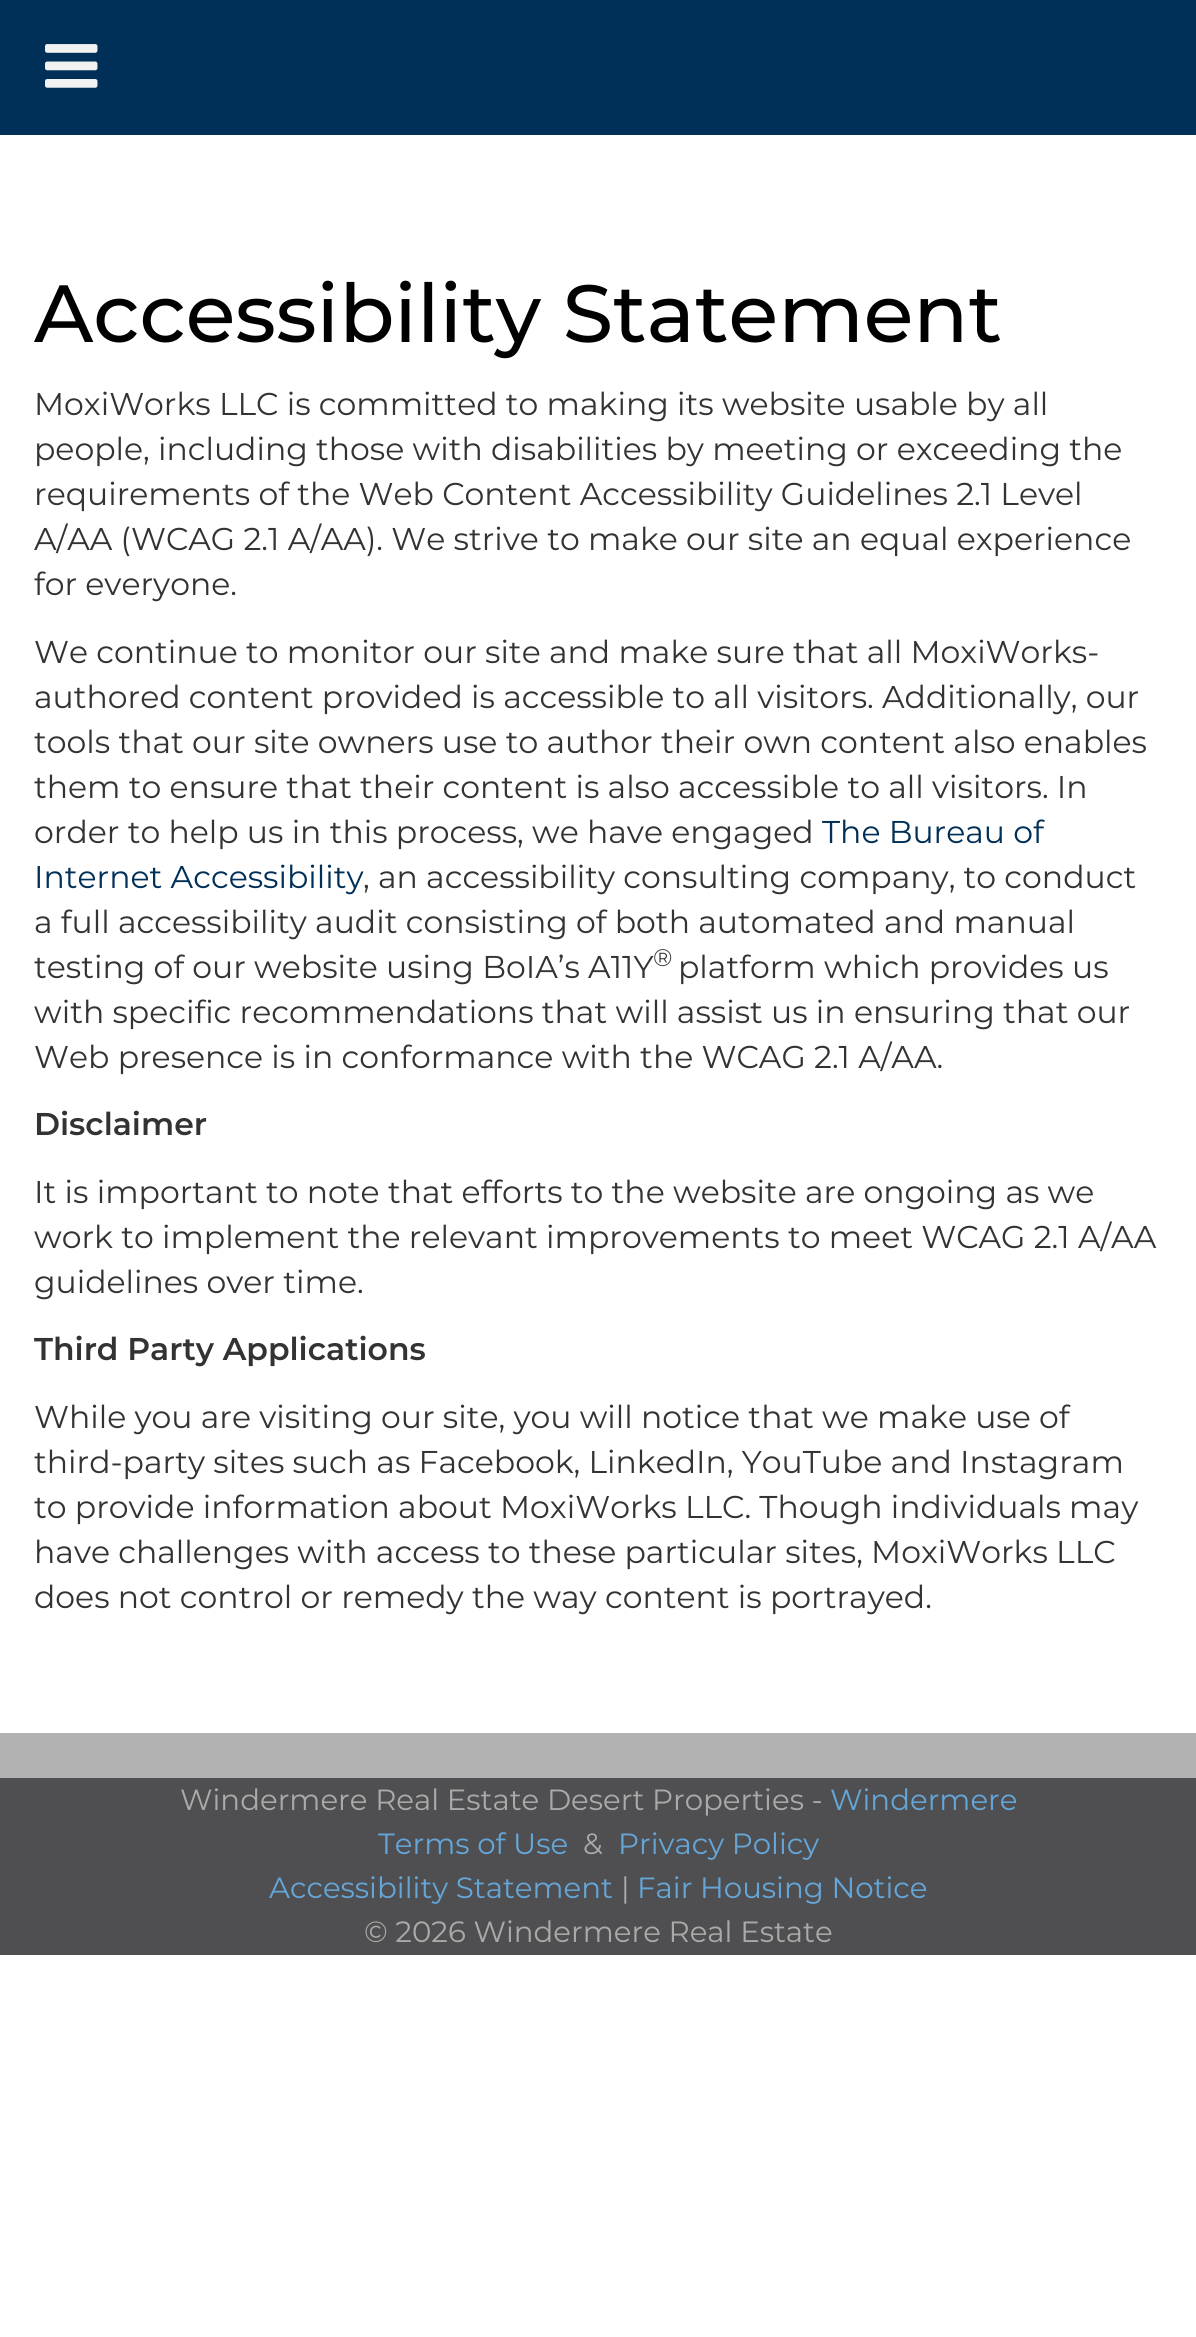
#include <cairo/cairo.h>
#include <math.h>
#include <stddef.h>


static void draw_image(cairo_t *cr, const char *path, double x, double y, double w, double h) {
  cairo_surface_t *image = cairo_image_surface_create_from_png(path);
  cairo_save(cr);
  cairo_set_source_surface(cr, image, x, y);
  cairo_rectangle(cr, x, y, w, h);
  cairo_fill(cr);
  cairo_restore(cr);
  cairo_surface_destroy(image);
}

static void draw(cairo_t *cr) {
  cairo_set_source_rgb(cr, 1, 1, 1);
  cairo_paint(cr);
  cairo_set_source_rgb(cr, 0, 48 / 255.0, 87 / 255.0);
  cairo_rectangle(cr, 0, 0, 1196, 135);
  cairo_fill(cr);
  draw_image(cr, "images/1.png", 45, 44, 53, 44);
  cairo_set_source_rgb(cr, 179 / 255.0, 178 / 255.0, 179 / 255.0);
  cairo_rectangle(cr, 0, 1733, 1196, 45);
  cairo_fill(cr);
  cairo_set_source_rgb(cr, 79 / 255.0, 79 / 255.0, 81 / 255.0);
  cairo_rectangle(cr, 0, 1778, 1196, 177);
  cairo_fill(cr);
  cairo_select_font_face(cr, "Montserrat Medium", CAIRO_FONT_SLANT_NORMAL, CAIRO_FONT_WEIGHT_NORMAL);
  cairo_set_font_size(cr, 81);
  cairo_set_source_rgb(cr, 0, 0, 0);
  cairo_move_to(cr, 34, 342);
  cairo_show_text(cr, "Accessibility Statement");
  cairo_select_font_face(cr, "Montserrat", CAIRO_FONT_SLANT_NORMAL, CAIRO_FONT_WEIGHT_NORMAL);
  cairo_set_font_size(cr, 31.5);
  cairo_set_source_rgb(cr, 51 / 255.0, 51 / 255.0, 51 / 255.0);
  cairo_move_to(cr, 34, 415);
  cairo_show_text(cr, "MoxiWorks LLC is committed to making its website usable by all");
  cairo_move_to(cr, 34, 460);
  cairo_show_text(cr, "people, including those with disabilities by meeting or exceeding the");
  cairo_move_to(cr, 34, 505);
  cairo_show_text(cr, "requirements of the Web Content Accessibility Guidelines 2.1 Level");
  cairo_move_to(cr, 34, 550);
  cairo_show_text(cr, "A/AA (WCAG 2.1 A/AA). We strive to make our site an equal experience");
  cairo_move_to(cr, 34, 595);
  cairo_show_text(cr, "for everyone.");
  cairo_move_to(cr, 34, 663);
  cairo_show_text(cr, "We continue to monitor our site and make sure that all MoxiWorks-");
  cairo_move_to(cr, 34, 708);
  cairo_show_text(cr, "authored content provided is accessible to all visitors. Additionally, our");
  cairo_move_to(cr, 34, 753);
  cairo_show_text(cr, "tools that our site owners use to author their own content also enables");
  cairo_move_to(cr, 34, 798);
  cairo_show_text(cr, "them to ensure that their content is also accessible to all visitors. In");
  cairo_move_to(cr, 34, 843);
  cairo_show_text(cr, "order to help us in this process, we have engaged");
  cairo_set_source_rgb(cr, 0, 48 / 255.0, 87 / 255.0);
  cairo_move_to(cr, 822, 843);
  cairo_show_text(cr, "The Bureau of");
  cairo_move_to(cr, 34, 888);
  cairo_show_text(cr, "Internet Accessibility");
  cairo_set_source_rgb(cr, 51 / 255.0, 51 / 255.0, 51 / 255.0);
  cairo_move_to(cr, 363, 888);
  cairo_show_text(cr, ", an accessibility consulting company, to conduct");
  cairo_move_to(cr, 34, 933);
  cairo_show_text(cr, "a full accessibility audit consisting of both automated and manual");
  cairo_move_to(cr, 34, 978);
  cairo_show_text(cr, "testing of our website using BoIA’s A11Y");
  cairo_set_font_size(cr, 24);
  cairo_move_to(cr, 653, 966);
  cairo_show_text(cr, "®");
  cairo_set_font_size(cr, 31.5);
  cairo_move_to(cr, 678, 978);
  cairo_show_text(cr, "platform which provides us");
  cairo_move_to(cr, 34, 1023);
  cairo_show_text(cr, "with specific recommendations that will assist us in ensuring that our");
  cairo_move_to(cr, 34, 1068);
  cairo_show_text(cr, "Web presence is in conformance with the WCAG 2.1 A/AA.");
  cairo_select_font_face(cr, "Montserrat SemiBold", CAIRO_FONT_SLANT_NORMAL, CAIRO_FONT_WEIGHT_NORMAL);
  cairo_move_to(cr, 34, 1135);
  cairo_show_text(cr, "Disclaimer");
  cairo_select_font_face(cr, "Montserrat", CAIRO_FONT_SLANT_NORMAL, CAIRO_FONT_WEIGHT_NORMAL);
  cairo_move_to(cr, 34, 1203);
  cairo_show_text(cr, "It is important to note that efforts to the website are ongoing as we");
  cairo_move_to(cr, 34, 1248);
  cairo_show_text(cr, "work to implement the relevant improvements to meet WCAG 2.1 A/AA");
  cairo_move_to(cr, 34, 1293);
  cairo_show_text(cr, "guidelines over time.");
  cairo_save(cr);
  cairo_rectangle(cr, 34, 135, 1129, 1553);
  cairo_clip(cr);
  cairo_select_font_face(cr, "Montserrat SemiBold", CAIRO_FONT_SLANT_NORMAL, CAIRO_FONT_WEIGHT_NORMAL);
  cairo_move_to(cr, 34, 1360);
  cairo_show_text(cr, "Third Party Applications");
  cairo_restore(cr);
  cairo_move_to(cr, 34, 1428);
  cairo_show_text(cr, "While you are visiting our site, you will notice that we make use of");
  cairo_move_to(cr, 34, 1473);
  cairo_show_text(cr, "third-party sites such as Facebook, LinkedIn, YouTube and Instagram");
  cairo_move_to(cr, 34, 1518);
  cairo_show_text(cr, "to provide information about MoxiWorks LLC. Though individuals may");
  cairo_move_to(cr, 34, 1563);
  cairo_show_text(cr, "have challenges with access to these particular sites, MoxiWorks LLC");
  cairo_move_to(cr, 34, 1608);
  cairo_show_text(cr, "does not control or remedy the way content is portrayed.");
  cairo_set_font_size(cr, 29.25);
  cairo_set_source_rgb(cr, 170 / 255.0, 170 / 255.0, 170 / 255.0);
  cairo_move_to(cr, 180, 1810);
  cairo_show_text(cr, "Windermere Real Estate Desert Properties -");
  cairo_set_source_rgb(cr, 101 / 255.0, 166 / 255.0, 216 / 255.0);
  cairo_move_to(cr, 830, 1810);
  cairo_show_text(cr, "Windermere");
  cairo_move_to(cr, 378, 1854);
  cairo_show_text(cr, "Terms of Use");
  cairo_set_source_rgb(cr, 170 / 255.0, 170 / 255.0, 170 / 255.0);
  cairo_move_to(cr, 583, 1854);
  cairo_show_text(cr, "&");
  cairo_set_source_rgb(cr, 101 / 255.0, 166 / 255.0, 216 / 255.0);
  cairo_move_to(cr, 618, 1854);
  cairo_show_text(cr, "Privacy Policy");
  cairo_move_to(cr, 269, 1898);
  cairo_show_text(cr, "Accessibility Statement");
  cairo_set_source_rgb(cr, 170 / 255.0, 170 / 255.0, 170 / 255.0);
  cairo_move_to(cr, 621, 1898);
  cairo_show_text(cr, "|");
  cairo_set_source_rgb(cr, 101 / 255.0, 166 / 255.0, 216 / 255.0);
  cairo_move_to(cr, 637, 1898);
  cairo_show_text(cr, "Fair Housing Notice");
  cairo_set_source_rgb(cr, 170 / 255.0, 170 / 255.0, 170 / 255.0);
  cairo_move_to(cr, 364, 1942);
  cairo_show_text(cr, "© 2026 Windermere Real Estate");
}

int main(void) {
  cairo_surface_t *surface = cairo_image_surface_create(CAIRO_FORMAT_RGB24, 1196, 2337);
  cairo_t *cr = cairo_create(surface);
  cairo_font_options_t *options = cairo_font_options_create();
  cairo_font_options_set_hint_metrics(options, CAIRO_HINT_METRICS_OFF);
  cairo_font_options_set_hint_style(options, CAIRO_HINT_STYLE_NONE);
  cairo_set_font_options(cr, options);
  cairo_set_miter_limit(cr, 4);
  draw(cr);
  cairo_surface_write_to_png(surface, "out.png");
  cairo_font_options_destroy(options);
  cairo_destroy(cr);
  cairo_surface_destroy(surface);
  return 0;
}
